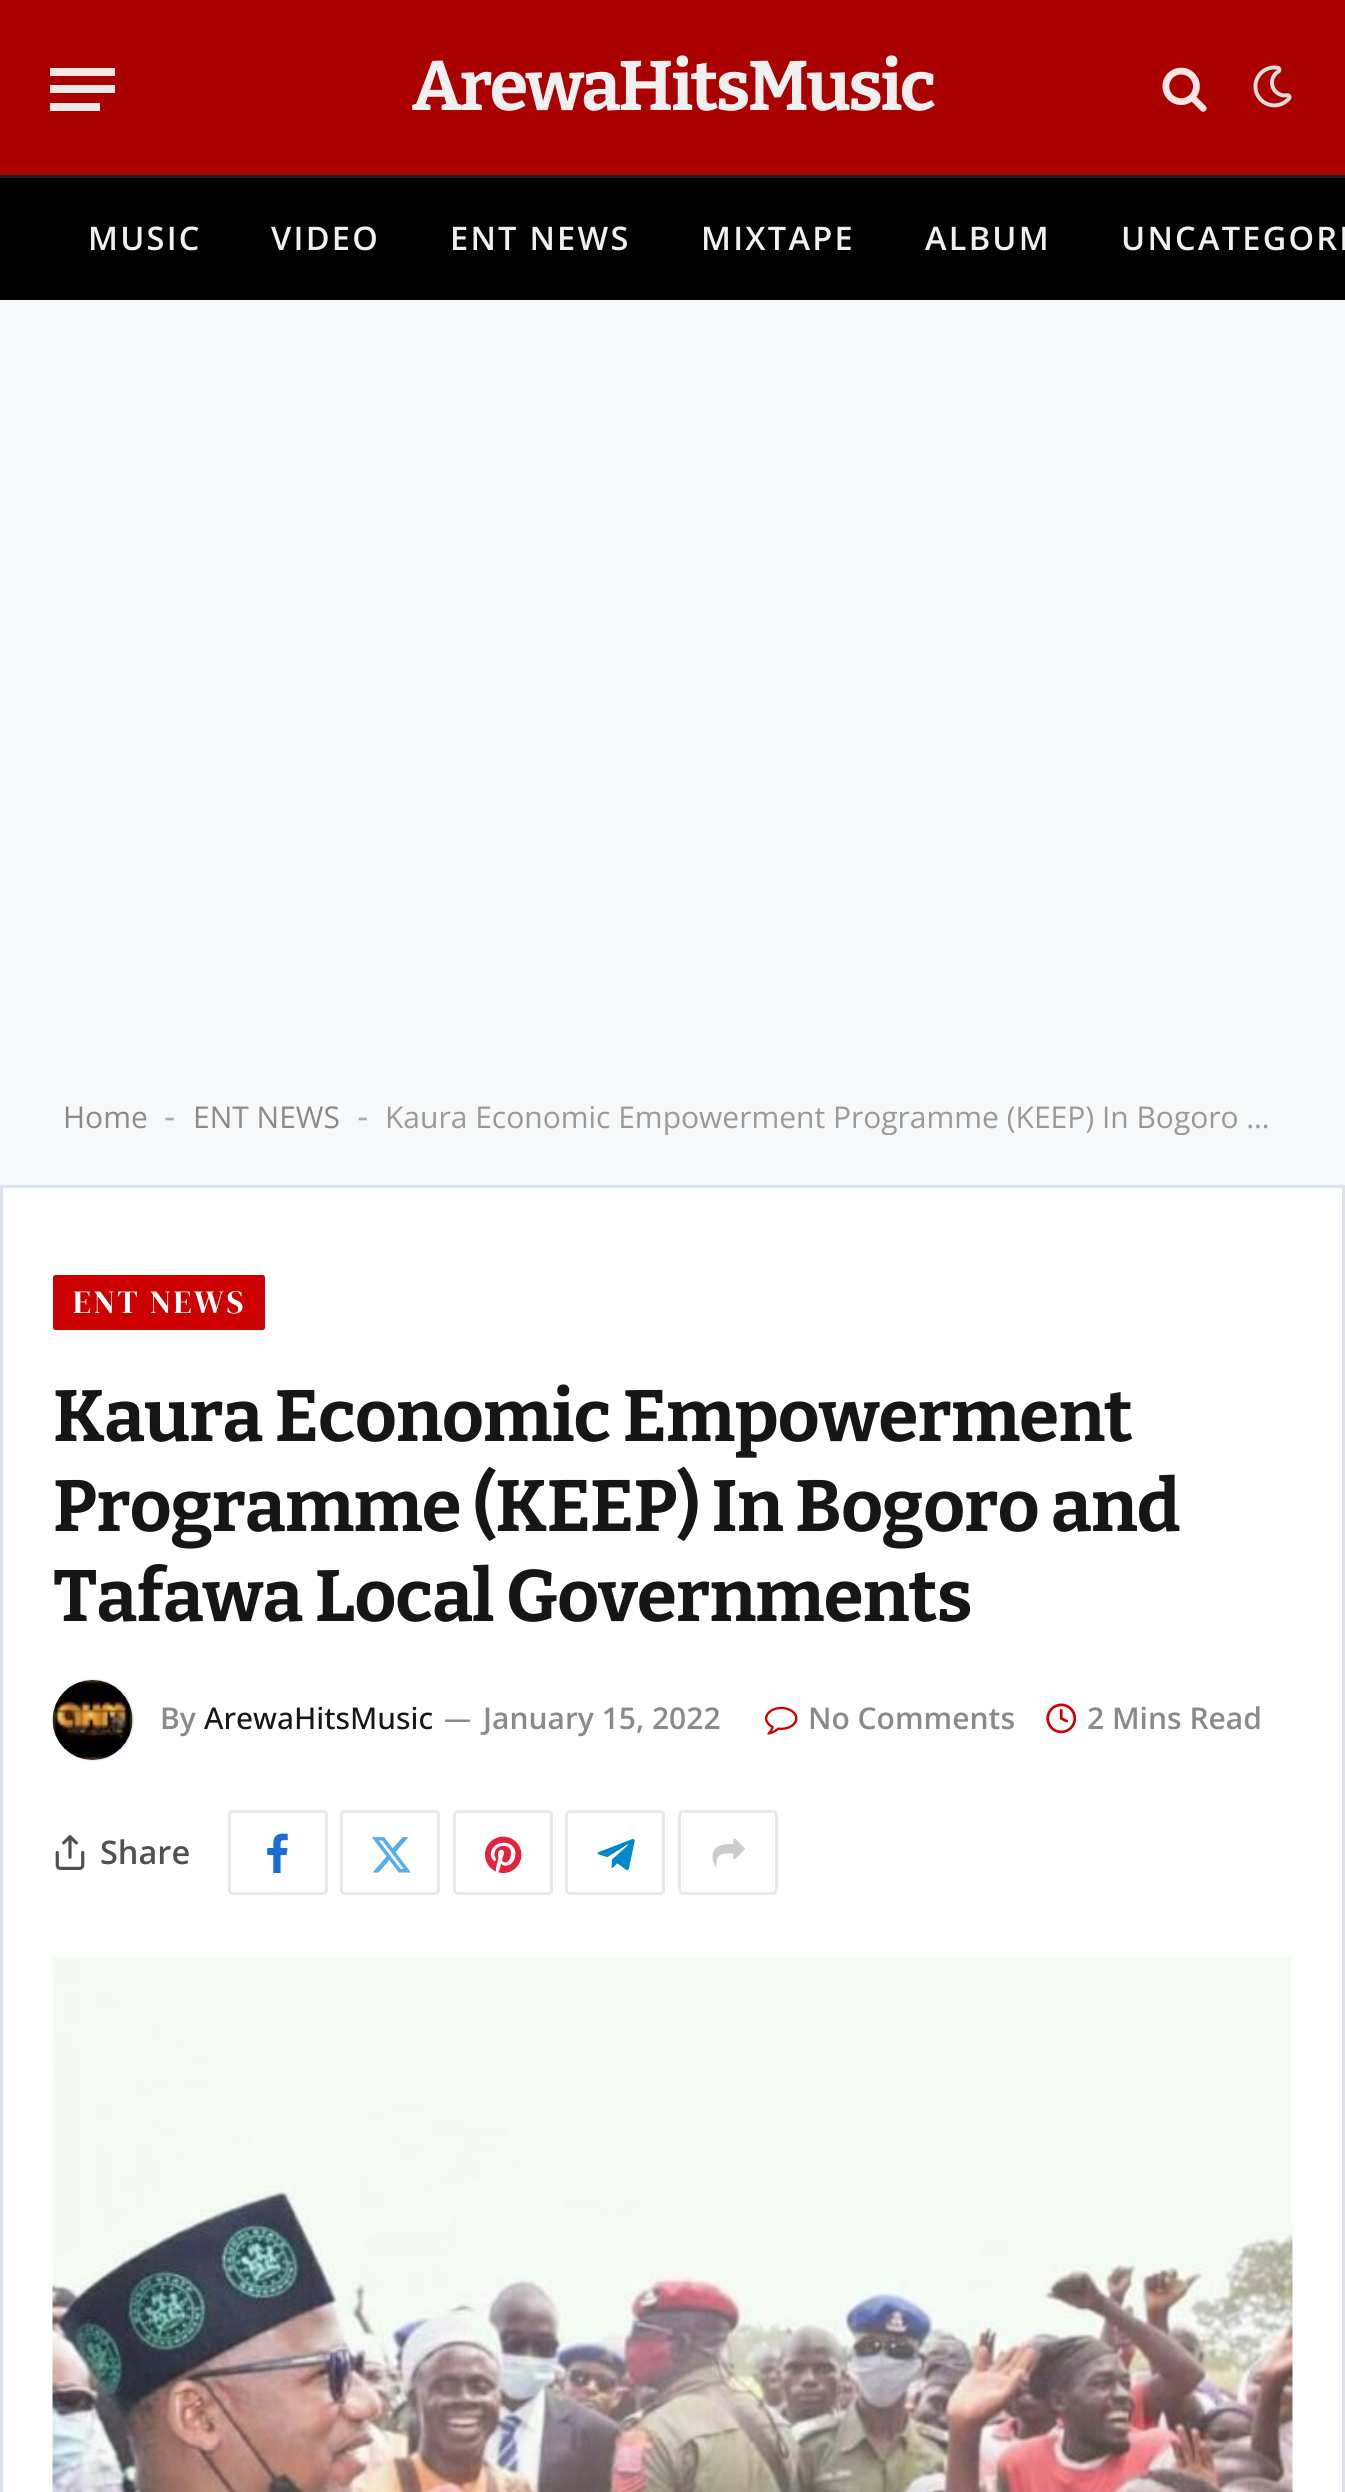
#include <cairo/cairo.h>
#include <math.h>
#include <stddef.h>


static void draw_spaced(cairo_t *cr, double x, double y, const char *s, double letter, double word) {
  cairo_move_to(cr, x, y);
  while (*s) {
    char ch[5] = {0};
    int n = 0;
    do ch[n++] = *s++; while ((*s & 0xC0) == 0x80);
    cairo_show_text(cr, ch);
    cairo_rel_move_to(cr, letter + word * (*ch == ' '), 0);
  }
}

static void rounded_rect(cairo_t *cr, double x, double y, double w, double h, double r) {
  cairo_new_sub_path(cr);
  cairo_arc(cr, x + w - r, y + h - r, r, 0, M_PI / 2);
  cairo_arc(cr, x + r, y + h - r, r, M_PI / 2, M_PI);
  cairo_arc(cr, x + r, y + r, r, M_PI, 1.5 * M_PI);
  cairo_arc(cr, x + w - r, y + r, r, 1.5 * M_PI, 2 * M_PI);
  cairo_close_path(cr);
}

static void draw_shadow(cairo_t *cr, double x, double y, double w, double h, double r, double blur, double alpha) {
  cairo_push_group_with_content(cr, CAIRO_CONTENT_ALPHA);
  cairo_set_operator(cr, CAIRO_OPERATOR_SOURCE);
  for (int i = 15; i >= -15 && fmin(w, h) + blur * i / 3 > 0; i -= 2) {
    double e = blur * i / 6;
    cairo_set_source_rgba(cr, 0, 0, 0, alpha * erfc((i - 1) / 8.5) / 2);
    rounded_rect(cr, x - e, y - e, w + 2 * e, h + 2 * e, fmax(0, fmin(r + e + blur * .6, fmin(w, h) / 2 + e)));
    cairo_fill(cr);
  }
  cairo_pattern_t *soft = cairo_pop_group(cr);
  cairo_mask(cr, soft);
  cairo_pattern_destroy(soft);
}

static void draw_image(cairo_t *cr, const char *path, double x, double y, double w, double h) {
  cairo_surface_t *image = cairo_image_surface_create_from_png(path);
  cairo_save(cr);
  cairo_set_source_surface(cr, image, x, y);
  cairo_rectangle(cr, x, y, w, h);
  cairo_fill(cr);
  cairo_restore(cr);
  cairo_surface_destroy(image);
}

static void draw(cairo_t *cr) {
  cairo_set_source_rgb(cr, 246 / 255.0, 248 / 255.0, 250 / 255.0);
  cairo_paint(cr);
  cairo_set_source_rgb(cr, 170 / 255.0, 0, 0);
  cairo_rectangle(cr, 0, 0, 1345, 175);
  cairo_fill(cr);
  cairo_set_source_rgb(cr, 247 / 255.0, 230 / 255.0, 230 / 255.0);
  cairo_rectangle(cr, 50, 103, 50, 8);
  cairo_fill(cr);
  cairo_rectangle(cr, 50, 68, 65, 8);
  cairo_fill(cr);
  cairo_rectangle(cr, 50, 85, 65, 8);
  cairo_fill(cr);
  draw_image(cr, "images/1.png", 1162, 67, 45, 45);
  draw_image(cr, "images/2.png", 1253, 65, 39, 43);
  cairo_set_source_rgb(cr, 0, 0, 0);
  cairo_rectangle(cr, 0, 178, 1345, 122);
  cairo_fill(cr);
  cairo_set_source_rgb(cr, 31 / 255.0, 31 / 255.0, 31 / 255.0);
  cairo_rectangle(cr, 0, 175, 1345, 3);
  cairo_fill(cr);
  cairo_set_source_rgb(cr, 1, 1, 1);
  cairo_rectangle(cr, 1.5, 1186.5, 1342, 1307);
  cairo_fill_preserve(cr);
  cairo_set_source_rgb(cr, 219 / 255.0, 226 / 255.0, 236 / 255.0);
  cairo_set_line_width(cr, 3);
  cairo_stroke(cr);
  cairo_set_source_rgb(cr, 204 / 255.0, 0, 0);
  rounded_rect(cr, 53, 1275, 212, 55, 2.5);
  cairo_fill(cr);
  cairo_set_source_rgb(cr, 0, 0, 0);
  draw_shadow(cr, 53, 1680, 80, 80, 40, 1, 0.2);
  draw_image(cr, "images/3.png", 52, 1680, 81, 80);
  draw_image(cr, "images/4.png", 765, 1706, 33, 29);
  draw_image(cr, "images/5.png", 1046, 1703, 31, 31);
  draw_image(cr, "images/6.png", 55, 1835, 30, 35);
  rounded_rect(cr, 229.5, 1811.5, 97, 82, 3.5);
  cairo_set_source_rgb(cr, 232 / 255.0, 232 / 255.0, 232 / 255.0);
  cairo_stroke(cr);
  draw_image(cr, "images/7.png", 267, 1833, 21, 40);
  rounded_rect(cr, 341.5, 1811.5, 97, 82, 3.5);
  cairo_stroke(cr);
  draw_image(cr, "images/8.png", 371, 1837, 40, 36);
  rounded_rect(cr, 454.5, 1811.5, 97, 82, 3.5);
  cairo_stroke(cr);
  draw_image(cr, "images/9.png", 485, 1836, 37, 37);
  rounded_rect(cr, 566.5, 1811.5, 97, 82, 3.5);
  cairo_stroke(cr);
  draw_image(cr, "images/10.png", 597, 1838, 38, 33);
  rounded_rect(cr, 679.5, 1811.5, 97, 82, 3.5);
  cairo_stroke(cr);
  draw_image(cr, "images/11.png", 712, 1838, 33, 30);
  draw_image(cr, "images/12.png", 52, 1957, 1241, 535);
  cairo_select_font_face(cr, "Bitter", CAIRO_FONT_SLANT_NORMAL, CAIRO_FONT_WEIGHT_BOLD);
  cairo_set_font_size(cr, 70);
  cairo_set_source_rgb(cr, 240 / 255.0, 240 / 255.0, 240 / 255.0);
  draw_spaced(cr, 412, 110, "ArewaHitsMusic", -2.5, 0);
  cairo_select_font_face(cr, "Open Sans SemiBold", CAIRO_FONT_SLANT_NORMAL, CAIRO_FONT_WEIGHT_NORMAL);
  cairo_set_font_size(cr, 32.5);
  draw_spaced(cr, 88, 250, "MUSIC", 2.25, 0);
  draw_spaced(cr, 271, 250, "VIDEO", 2.25, 0);
  draw_spaced(cr, 450, 250, "ENT NEWS", 2.25, 0);
  draw_spaced(cr, 701, 250, "MIXTAPE", 2.25, 0);
  draw_spaced(cr, 925, 250, "ALBUM", 2.25, 0);
  draw_spaced(cr, 1121, 250, "UNCATEGORI", 2.25, 0);
  cairo_select_font_face(cr, "Open Sans", CAIRO_FONT_SLANT_NORMAL, CAIRO_FONT_WEIGHT_NORMAL);
  cairo_set_font_size(cr, 30);
  cairo_set_source_rgb(cr, 138 / 255.0, 138 / 255.0, 138 / 255.0);
  cairo_move_to(cr, 63, 1128);
  cairo_show_text(cr, "Home");
  cairo_select_font_face(cr, "Liberation Sans", CAIRO_FONT_SLANT_NORMAL, CAIRO_FONT_WEIGHT_NORMAL);
  cairo_set_font_size(cr, 34);
  cairo_set_source_rgb(cr, 172 / 255.0, 172 / 255.0, 172 / 255.0);
  cairo_move_to(cr, 164, 1128);
  cairo_show_text(cr, "-");
  cairo_select_font_face(cr, "Open Sans", CAIRO_FONT_SLANT_NORMAL, CAIRO_FONT_WEIGHT_NORMAL);
  cairo_set_font_size(cr, 30);
  cairo_set_source_rgb(cr, 138 / 255.0, 138 / 255.0, 138 / 255.0);
  cairo_move_to(cr, 193, 1128);
  cairo_show_text(cr, "ENT NEWS");
  cairo_select_font_face(cr, "Liberation Sans", CAIRO_FONT_SLANT_NORMAL, CAIRO_FONT_WEIGHT_NORMAL);
  cairo_set_font_size(cr, 34);
  cairo_set_source_rgb(cr, 172 / 255.0, 172 / 255.0, 172 / 255.0);
  cairo_move_to(cr, 357, 1128);
  cairo_show_text(cr, "-");
  cairo_save(cr);
  cairo_rectangle(cr, 0, 1100, 1345, 35);
  cairo_clip(cr);
  cairo_select_font_face(cr, "Open Sans", CAIRO_FONT_SLANT_NORMAL, CAIRO_FONT_WEIGHT_NORMAL);
  cairo_set_font_size(cr, 30);
  cairo_set_source_rgb(cr, 153 / 255.0, 153 / 255.0, 153 / 255.0);
  cairo_move_to(cr, 385, 1128);
  cairo_show_text(cr, "Kaura Economic Empowerment Programme (KEEP) In Bogoro …");
  cairo_restore(cr);
  cairo_select_font_face(cr, "DM Serif Display", CAIRO_FONT_SLANT_NORMAL, CAIRO_FONT_WEIGHT_NORMAL);
  cairo_set_font_size(cr, 32.5);
  cairo_set_source_rgb(cr, 1, 1, 1);
  draw_spaced(cr, 73, 1313, "ENT NEWS", 2.5, 0);
  cairo_select_font_face(cr, "Bitter", CAIRO_FONT_SLANT_NORMAL, CAIRO_FONT_WEIGHT_BOLD);
  cairo_set_font_size(cr, 72.5);
  cairo_set_source_rgb(cr, 22 / 255.0, 22 / 255.0, 22 / 255.0);
  draw_spaced(cr, 53, 1441, "Kaura Economic Empowerment", -0.75, 0);
  draw_spaced(cr, 53, 1531, "Programme (KEEP) In Bogoro and", -0.75, 0);
  draw_spaced(cr, 53, 1621, "Tafawa Local Governments", -0.75, 0);
  cairo_select_font_face(cr, "Open Sans SemiBold", CAIRO_FONT_SLANT_NORMAL, CAIRO_FONT_WEIGHT_NORMAL);
  cairo_set_font_size(cr, 30);
  cairo_set_source_rgb(cr, 138 / 255.0, 138 / 255.0, 138 / 255.0);
  cairo_move_to(cr, 160, 1729);
  cairo_show_text(cr, "By");
  cairo_select_font_face(cr, "Open Sans Medium", CAIRO_FONT_SLANT_NORMAL, CAIRO_FONT_WEIGHT_NORMAL);
  cairo_set_source_rgb(cr, 22 / 255.0, 22 / 255.0, 22 / 255.0);
  cairo_move_to(cr, 204, 1729);
  cairo_show_text(cr, "ArewaHitsMusic");
  cairo_select_font_face(cr, "Open Sans SemiBold", CAIRO_FONT_SLANT_NORMAL, CAIRO_FONT_WEIGHT_NORMAL);
  cairo_set_font_size(cr, 27);
  cairo_set_source_rgb(cr, 138 / 255.0, 138 / 255.0, 138 / 255.0);
  cairo_move_to(cr, 444, 1728);
  cairo_show_text(cr, "—");
  cairo_set_font_size(cr, 30);
  cairo_move_to(cr, 483, 1729);
  cairo_show_text(cr, "January 15, 2022");
  cairo_move_to(cr, 808, 1729);
  cairo_show_text(cr, "No Comments");
  cairo_move_to(cr, 1087, 1729);
  cairo_show_text(cr, "2 Mins Read");
  cairo_set_font_size(cr, 32.5);
  cairo_set_source_rgb(cr, 80 / 255.0, 80 / 255.0, 80 / 255.0);
  cairo_move_to(cr, 100, 1864);
  cairo_show_text(cr, "Share");
}

int main(void) {
  cairo_surface_t *surface = cairo_image_surface_create(CAIRO_FORMAT_RGB24, 1345, 2492);
  cairo_t *cr = cairo_create(surface);
  cairo_font_options_t *options = cairo_font_options_create();
  cairo_font_options_set_hint_metrics(options, CAIRO_HINT_METRICS_OFF);
  cairo_font_options_set_hint_style(options, CAIRO_HINT_STYLE_NONE);
  cairo_set_font_options(cr, options);
  cairo_set_miter_limit(cr, 4);
  draw(cr);
  cairo_surface_write_to_png(surface, "out.png");
  cairo_font_options_destroy(options);
  cairo_destroy(cr);
  cairo_surface_destroy(surface);
  return 0;
}
